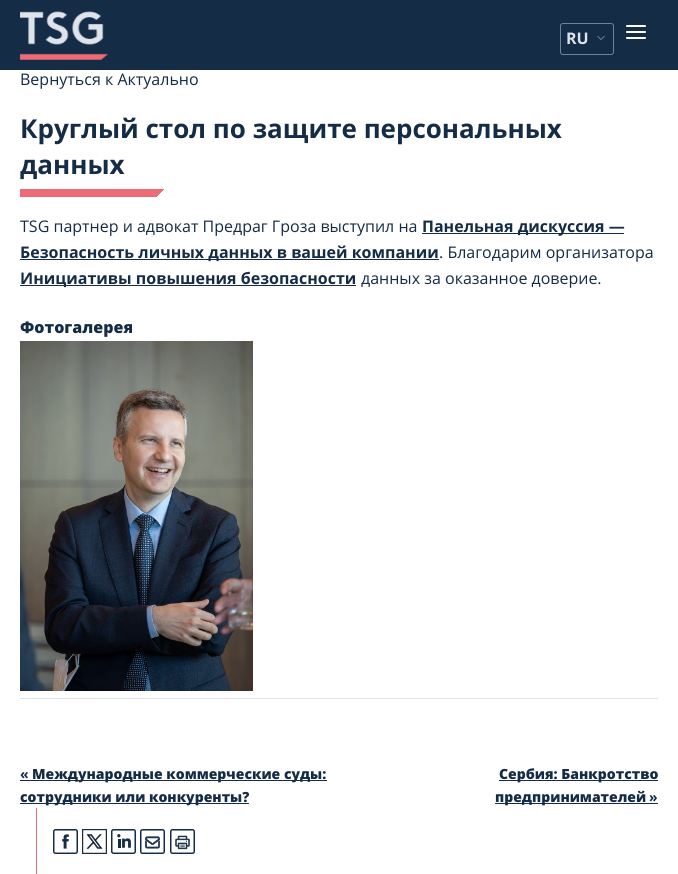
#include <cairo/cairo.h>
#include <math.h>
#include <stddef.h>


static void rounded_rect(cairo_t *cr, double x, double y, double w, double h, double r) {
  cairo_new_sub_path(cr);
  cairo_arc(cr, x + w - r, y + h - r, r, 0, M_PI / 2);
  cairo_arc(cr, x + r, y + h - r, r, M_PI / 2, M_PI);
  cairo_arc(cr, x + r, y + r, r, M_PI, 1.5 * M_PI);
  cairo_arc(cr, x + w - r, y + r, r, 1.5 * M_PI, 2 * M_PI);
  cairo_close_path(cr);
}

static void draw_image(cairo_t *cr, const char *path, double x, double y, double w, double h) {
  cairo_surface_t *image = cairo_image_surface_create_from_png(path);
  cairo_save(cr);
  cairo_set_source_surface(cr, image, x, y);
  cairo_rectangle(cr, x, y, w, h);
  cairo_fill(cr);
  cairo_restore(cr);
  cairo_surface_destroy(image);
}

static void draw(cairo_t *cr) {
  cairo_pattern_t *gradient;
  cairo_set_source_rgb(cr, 1, 1, 1);
  cairo_paint(cr);
  cairo_set_source_rgb(cr, 20 / 255.0, 44 / 255.0, 70 / 255.0);
  cairo_rectangle(cr, 0, 0, 678, 70);
  cairo_fill(cr);
  draw_image(cr, "images/1.png", 20, 11, 88, 49);
  rounded_rect(cr, 560.5, 23.5, 53, 31, 2.5);
  cairo_set_source_rgb(cr, 115 / 255.0, 130 / 255.0, 148 / 255.0);
  cairo_set_line_width(cr, 1);
  cairo_stroke(cr);
  draw_image(cr, "images/2.png", 597, 36, 8, 4);
  cairo_new_path(cr);
  cairo_move_to(cr, 627, 32);
  cairo_line_to(cr, 645, 32);
  cairo_move_to(cr, 627, 26);
  cairo_line_to(cr, 645, 26);
  cairo_move_to(cr, 627, 38);
  cairo_line_to(cr, 645, 38);
  cairo_set_source_rgb(cr, 1, 1, 1);
  cairo_set_line_width(cr, 2);
  cairo_set_line_cap(cr, CAIRO_LINE_CAP_ROUND);
  cairo_set_line_join(cr, CAIRO_LINE_JOIN_ROUND);
  cairo_stroke(cr);
  gradient = cairo_pattern_create_linear(63, 146, 157, 240);
  cairo_pattern_add_color_stop_rgba(gradient, 0.77, 237 / 255.0, 107 / 255.0, 119 / 255.0, 1);
  cairo_pattern_add_color_stop_rgba(gradient, 0.77, 1, 1, 1, 1);
  cairo_set_source(cr, gradient);
  cairo_pattern_destroy(gradient);
  cairo_rectangle(cr, 20, 189, 144, 8);
  cairo_fill(cr);
  cairo_set_source_rgb(cr, 20 / 255.0, 44 / 255.0, 70 / 255.0);
  cairo_rectangle(cr, 422, 233, 202, 1);
  cairo_fill(cr);
  cairo_rectangle(cr, 20, 259, 419, 1);
  cairo_fill(cr);
  cairo_rectangle(cr, 20, 285, 336, 1);
  cairo_fill(cr);
  draw_image(cr, "images/3.png", 20, 341, 233, 350);
  cairo_set_source_rgb(cr, 223 / 255.0, 227 / 255.0, 235 / 255.0);
  cairo_rectangle(cr, 20, 698, 638, 1);
  cairo_fill(cr);
  cairo_set_source_rgb(cr, 20 / 255.0, 44 / 255.0, 70 / 255.0);
  cairo_rectangle(cr, 20, 780, 307, 1);
  cairo_fill(cr);
  cairo_rectangle(cr, 20, 803, 229, 1);
  cairo_fill(cr);
  cairo_rectangle(cr, 499, 780, 159, 1);
  cairo_fill(cr);
  cairo_rectangle(cr, 495, 803, 163, 1);
  cairo_fill(cr);
  cairo_set_source_rgb(cr, 237 / 255.0, 107 / 255.0, 119 / 255.0);
  cairo_rectangle(cr, 36, 808, 1, 66);
  cairo_fill(cr);
  draw_image(cr, "images/4.png", 53, 829, 25, 25);
  draw_image(cr, "images/5.png", 82, 829, 25, 25);
  draw_image(cr, "images/6.png", 111, 829, 25, 25);
  draw_image(cr, "images/7.png", 140, 829, 25, 25);
  draw_image(cr, "images/8.png", 170, 829, 25, 25);
  cairo_select_font_face(cr, "Open Sans", CAIRO_FONT_SLANT_NORMAL, CAIRO_FONT_WEIGHT_BOLD);
  cairo_set_font_size(cr, 16);
  cairo_set_source_rgb(cr, 223 / 255.0, 227 / 255.0, 235 / 255.0);
  cairo_move_to(cr, 566, 44);
  cairo_show_text(cr, "RU");
  cairo_select_font_face(cr, "Open Sans", CAIRO_FONT_SLANT_NORMAL, CAIRO_FONT_WEIGHT_NORMAL);
  cairo_set_source_rgb(cr, 20 / 255.0, 44 / 255.0, 70 / 255.0);
  cairo_move_to(cr, 20, 85);
  cairo_show_text(cr, "Вернуться к Актуально");
  cairo_select_font_face(cr, "Open Sans", CAIRO_FONT_SLANT_NORMAL, CAIRO_FONT_WEIGHT_BOLD);
  cairo_set_font_size(cr, 26);
  cairo_move_to(cr, 20, 138);
  cairo_show_text(cr, "Круглый стол по защите персональных");
  cairo_move_to(cr, 20, 174);
  cairo_show_text(cr, "данных");
  cairo_select_font_face(cr, "Open Sans", CAIRO_FONT_SLANT_NORMAL, CAIRO_FONT_WEIGHT_NORMAL);
  cairo_set_font_size(cr, 16);
  cairo_move_to(cr, 20, 232);
  cairo_show_text(cr, "TSG партнер и адвокат Предраг Гроза выступил на");
  cairo_select_font_face(cr, "Open Sans", CAIRO_FONT_SLANT_NORMAL, CAIRO_FONT_WEIGHT_BOLD);
  cairo_move_to(cr, 422, 232);
  cairo_show_text(cr, "Панельная дискуссия —");
  cairo_move_to(cr, 20, 258);
  cairo_show_text(cr, "Безопасность личных данных в вашей компании");
  cairo_select_font_face(cr, "Open Sans", CAIRO_FONT_SLANT_NORMAL, CAIRO_FONT_WEIGHT_NORMAL);
  cairo_move_to(cr, 439, 258);
  cairo_show_text(cr, ". Благодарим организатора");
  cairo_select_font_face(cr, "Open Sans", CAIRO_FONT_SLANT_NORMAL, CAIRO_FONT_WEIGHT_BOLD);
  cairo_move_to(cr, 20, 284);
  cairo_show_text(cr, "Инициативы повышения безопасности");
  cairo_select_font_face(cr, "Open Sans", CAIRO_FONT_SLANT_NORMAL, CAIRO_FONT_WEIGHT_NORMAL);
  cairo_move_to(cr, 361, 284);
  cairo_show_text(cr, "данных за оказанное доверие.");
  cairo_select_font_face(cr, "Open Sans ExtraBold", CAIRO_FONT_SLANT_NORMAL, CAIRO_FONT_WEIGHT_NORMAL);
  cairo_move_to(cr, 20, 333);
  cairo_show_text(cr, "Фотогалерея");
  cairo_select_font_face(cr, "Open Sans", CAIRO_FONT_SLANT_NORMAL, CAIRO_FONT_WEIGHT_BOLD);
  cairo_set_font_size(cr, 14);
  cairo_move_to(cr, 20, 779);
  cairo_show_text(cr, "«");
  cairo_select_font_face(cr, "Open Sans ExtraBold", CAIRO_FONT_SLANT_NORMAL, CAIRO_FONT_WEIGHT_NORMAL);
  cairo_move_to(cr, 32, 779);
  cairo_show_text(cr, "Международные коммерческие суды:");
  cairo_move_to(cr, 20, 802);
  cairo_show_text(cr, "сотрудники или конкуренты?");
  cairo_move_to(cr, 499, 779);
  cairo_show_text(cr, "Сербия: Банкротство");
  cairo_move_to(cr, 495, 802);
  cairo_show_text(cr, "предпринимателей");
  cairo_select_font_face(cr, "Open Sans", CAIRO_FONT_SLANT_NORMAL, CAIRO_FONT_WEIGHT_BOLD);
  cairo_move_to(cr, 649, 802);
  cairo_show_text(cr, "»");
}

int main(void) {
  cairo_surface_t *surface = cairo_image_surface_create(CAIRO_FORMAT_RGB24, 678, 874);
  cairo_t *cr = cairo_create(surface);
  cairo_font_options_t *options = cairo_font_options_create();
  cairo_font_options_set_hint_metrics(options, CAIRO_HINT_METRICS_OFF);
  cairo_font_options_set_hint_style(options, CAIRO_HINT_STYLE_NONE);
  cairo_set_font_options(cr, options);
  cairo_set_miter_limit(cr, 4);
  draw(cr);
  cairo_surface_write_to_png(surface, "out.png");
  cairo_font_options_destroy(options);
  cairo_destroy(cr);
  cairo_surface_destroy(surface);
  return 0;
}
